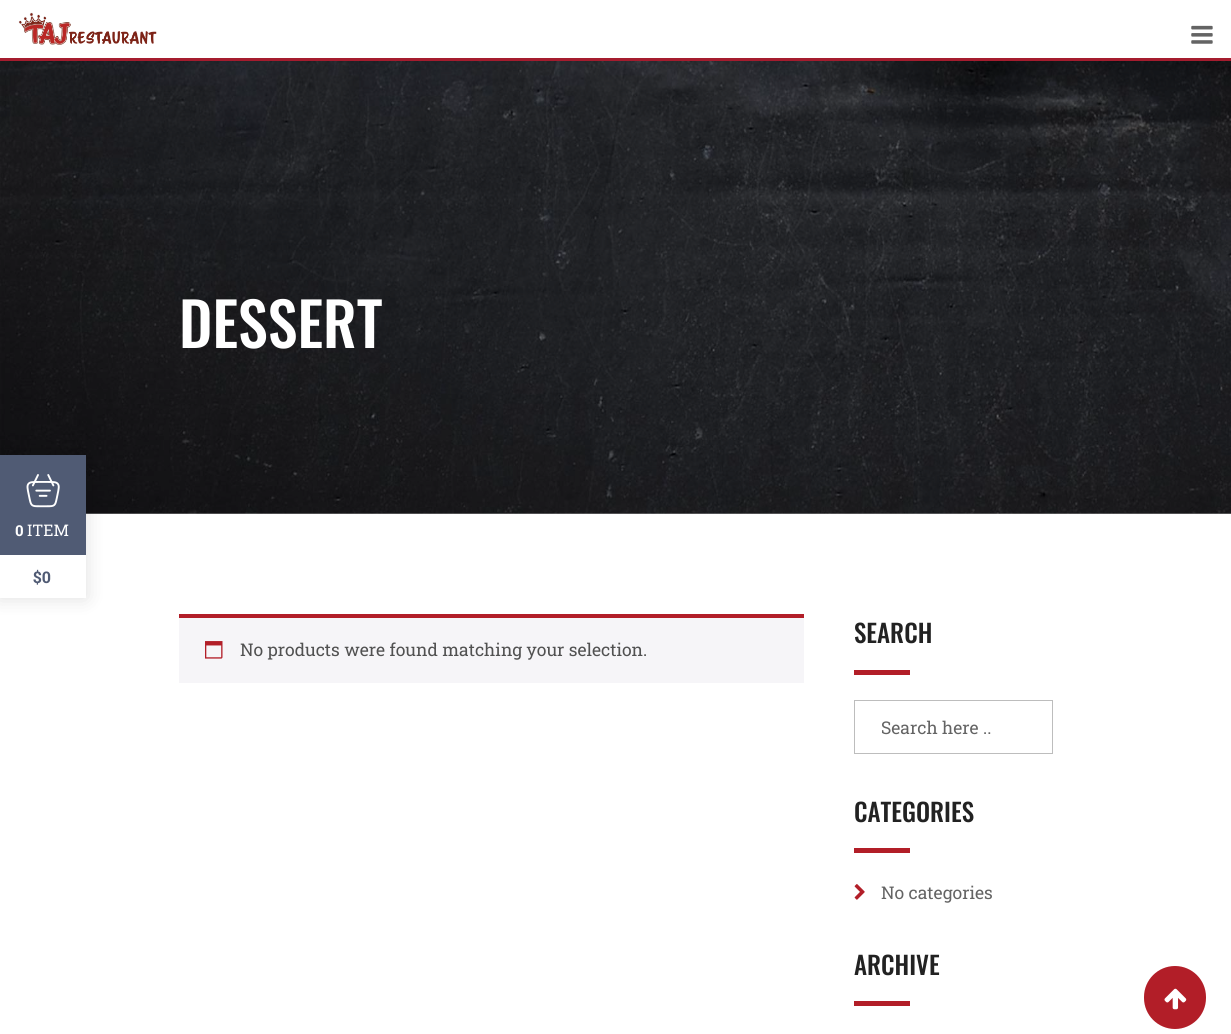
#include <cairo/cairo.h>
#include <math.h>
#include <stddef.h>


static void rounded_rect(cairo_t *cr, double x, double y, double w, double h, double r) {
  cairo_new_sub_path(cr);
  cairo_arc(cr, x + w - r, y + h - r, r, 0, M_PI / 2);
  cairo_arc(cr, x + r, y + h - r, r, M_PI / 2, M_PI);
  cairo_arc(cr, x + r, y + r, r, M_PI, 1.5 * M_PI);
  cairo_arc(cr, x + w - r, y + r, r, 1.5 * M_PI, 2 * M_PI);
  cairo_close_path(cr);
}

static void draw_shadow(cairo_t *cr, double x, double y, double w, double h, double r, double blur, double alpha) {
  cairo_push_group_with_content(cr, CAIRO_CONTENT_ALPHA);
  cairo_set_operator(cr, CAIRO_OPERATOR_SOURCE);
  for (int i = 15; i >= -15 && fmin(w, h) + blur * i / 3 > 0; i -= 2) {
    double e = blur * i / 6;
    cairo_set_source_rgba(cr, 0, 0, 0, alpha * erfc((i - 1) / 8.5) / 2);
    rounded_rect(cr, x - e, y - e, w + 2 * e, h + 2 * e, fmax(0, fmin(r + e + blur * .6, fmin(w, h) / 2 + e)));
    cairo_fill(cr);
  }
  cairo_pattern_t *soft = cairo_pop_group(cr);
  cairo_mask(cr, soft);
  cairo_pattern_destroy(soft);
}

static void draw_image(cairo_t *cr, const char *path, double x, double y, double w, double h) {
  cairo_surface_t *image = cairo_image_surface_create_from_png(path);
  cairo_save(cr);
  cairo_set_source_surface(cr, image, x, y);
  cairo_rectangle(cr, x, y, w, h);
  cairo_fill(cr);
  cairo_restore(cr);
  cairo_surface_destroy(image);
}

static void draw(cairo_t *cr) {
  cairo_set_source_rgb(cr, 1, 1, 1);
  cairo_paint(cr);
  draw_image(cr, "images/4.png", 0, 61, 1231, 453);
  cairo_set_source_rgb(cr, 0, 0, 0);
  draw_shadow(cr, -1, 455, 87, 143, 0, 9.5, 0.13);
  cairo_set_source_rgb(cr, 80 / 255.0, 91 / 255.0, 116 / 255.0);
  cairo_rectangle(cr, 0, 455, 86, 100);
  cairo_fill(cr);
  draw_image(cr, "images/1.png", 26, 474, 34, 34);
  cairo_set_source_rgb(cr, 1, 1, 1);
  cairo_rectangle(cr, 0, 555, 86, 43);
  cairo_fill(cr);
  cairo_set_source_rgb(cr, 165 / 255.0, 28 / 255.0, 46 / 255.0);
  cairo_rectangle(cr, 0, 58, 1231, 3);
  cairo_fill(cr);
  draw_image(cr, "images/2.png", 18, 12, 139, 33);
  draw_image(cr, "images/3.png", 1191, 25, 22, 19);
  cairo_set_source_rgb(cr, 246 / 255.0, 245 / 255.0, 248 / 255.0);
  cairo_rectangle(cr, 179, 618, 625, 65);
  cairo_fill(cr);
  cairo_set_source_rgb(cr, 178 / 255.0, 30 / 255.0, 40 / 255.0);
  cairo_rectangle(cr, 179, 614, 625, 4);
  cairo_fill(cr);
  draw_image(cr, "images/5.png", 205, 641, 18, 18);
  cairo_rectangle(cr, 854, 670, 56, 5);
  cairo_fill(cr);
  cairo_rectangle(cr, 854.5, 700.5, 198, 53);
  cairo_set_source_rgb(cr, 189 / 255.0, 189 / 255.0, 189 / 255.0);
  cairo_set_line_width(cr, 1);
  cairo_stroke(cr);
  cairo_set_source_rgb(cr, 178 / 255.0, 30 / 255.0, 40 / 255.0);
  cairo_rectangle(cr, 854, 848, 56, 5);
  cairo_fill(cr);
  draw_image(cr, "images/6.png", 854, 884, 11, 16);
  cairo_rectangle(cr, 854, 1001, 56, 5);
  cairo_fill(cr);
  rounded_rect(cr, 1144, 966, 62, 63, 31);
  cairo_fill(cr);
  draw_image(cr, "images/7.png", 1164, 988, 23, 22);
  cairo_select_font_face(cr, "Roboto Slab", CAIRO_FONT_SLANT_NORMAL, CAIRO_FONT_WEIGHT_BOLD);
  cairo_set_font_size(cr, 15);
  cairo_set_source_rgb(cr, 1, 1, 1);
  cairo_move_to(cr, 15, 536);
  cairo_show_text(cr, "0");
  cairo_select_font_face(cr, "Roboto Slab", CAIRO_FONT_SLANT_NORMAL, CAIRO_FONT_WEIGHT_NORMAL);
  cairo_set_font_size(cr, 16);
  cairo_move_to(cr, 27, 536);
  cairo_show_text(cr, "ITEM");
  cairo_select_font_face(cr, "Roboto Slab", CAIRO_FONT_SLANT_NORMAL, CAIRO_FONT_WEIGHT_BOLD);
  cairo_set_source_rgb(cr, 80 / 255.0, 91 / 255.0, 116 / 255.0);
  cairo_move_to(cr, 33, 583);
  cairo_show_text(cr, "$0");
  cairo_select_font_face(cr, "Oswald Medium", CAIRO_FONT_SLANT_NORMAL, CAIRO_FONT_WEIGHT_NORMAL);
  cairo_set_font_size(cr, 60);
  cairo_set_source_rgb(cr, 1, 1, 1);
  cairo_move_to(cr, 179, 348);
  cairo_show_text(cr, "DESSERT");
  cairo_select_font_face(cr, "Roboto Slab", CAIRO_FONT_SLANT_NORMAL, CAIRO_FONT_WEIGHT_NORMAL);
  cairo_set_font_size(cr, 17.5);
  cairo_set_source_rgb(cr, 81 / 255.0, 81 / 255.0, 81 / 255.0);
  cairo_move_to(cr, 240, 656);
  cairo_show_text(cr, "No products were found matching your selection.");
  cairo_select_font_face(cr, "Oswald Medium", CAIRO_FONT_SLANT_NORMAL, CAIRO_FONT_WEIGHT_NORMAL);
  cairo_set_font_size(cr, 25);
  cairo_set_source_rgb(cr, 34 / 255.0, 34 / 255.0, 34 / 255.0);
  cairo_move_to(cr, 854, 643);
  cairo_show_text(cr, "SEARCH");
  cairo_select_font_face(cr, "Roboto Slab", CAIRO_FONT_SLANT_NORMAL, CAIRO_FONT_WEIGHT_NORMAL);
  cairo_set_font_size(cr, 17.5);
  cairo_set_source_rgb(cr, 100 / 255.0, 100 / 255.0, 100 / 255.0);
  cairo_move_to(cr, 881, 734);
  cairo_show_text(cr, "Search here ..");
  cairo_select_font_face(cr, "Oswald Medium", CAIRO_FONT_SLANT_NORMAL, CAIRO_FONT_WEIGHT_NORMAL);
  cairo_set_font_size(cr, 25);
  cairo_set_source_rgb(cr, 34 / 255.0, 34 / 255.0, 34 / 255.0);
  cairo_move_to(cr, 854, 822);
  cairo_show_text(cr, "CATEGORIES");
  cairo_select_font_face(cr, "Roboto Slab", CAIRO_FONT_SLANT_NORMAL, CAIRO_FONT_WEIGHT_NORMAL);
  cairo_set_font_size(cr, 17.5);
  cairo_set_source_rgb(cr, 100 / 255.0, 100 / 255.0, 100 / 255.0);
  cairo_move_to(cr, 881, 899);
  cairo_show_text(cr, "No categories");
  cairo_select_font_face(cr, "Oswald Medium", CAIRO_FONT_SLANT_NORMAL, CAIRO_FONT_WEIGHT_NORMAL);
  cairo_set_font_size(cr, 25);
  cairo_set_source_rgb(cr, 34 / 255.0, 34 / 255.0, 34 / 255.0);
  cairo_move_to(cr, 854, 975);
  cairo_show_text(cr, "ARCHIVE");
}

int main(void) {
  cairo_surface_t *surface = cairo_image_surface_create(CAIRO_FORMAT_RGB24, 1231, 1034);
  cairo_t *cr = cairo_create(surface);
  cairo_font_options_t *options = cairo_font_options_create();
  cairo_font_options_set_hint_metrics(options, CAIRO_HINT_METRICS_OFF);
  cairo_font_options_set_hint_style(options, CAIRO_HINT_STYLE_NONE);
  cairo_set_font_options(cr, options);
  cairo_set_miter_limit(cr, 4);
  draw(cr);
  cairo_surface_write_to_png(surface, "out.png");
  cairo_font_options_destroy(options);
  cairo_destroy(cr);
  cairo_surface_destroy(surface);
  return 0;
}
